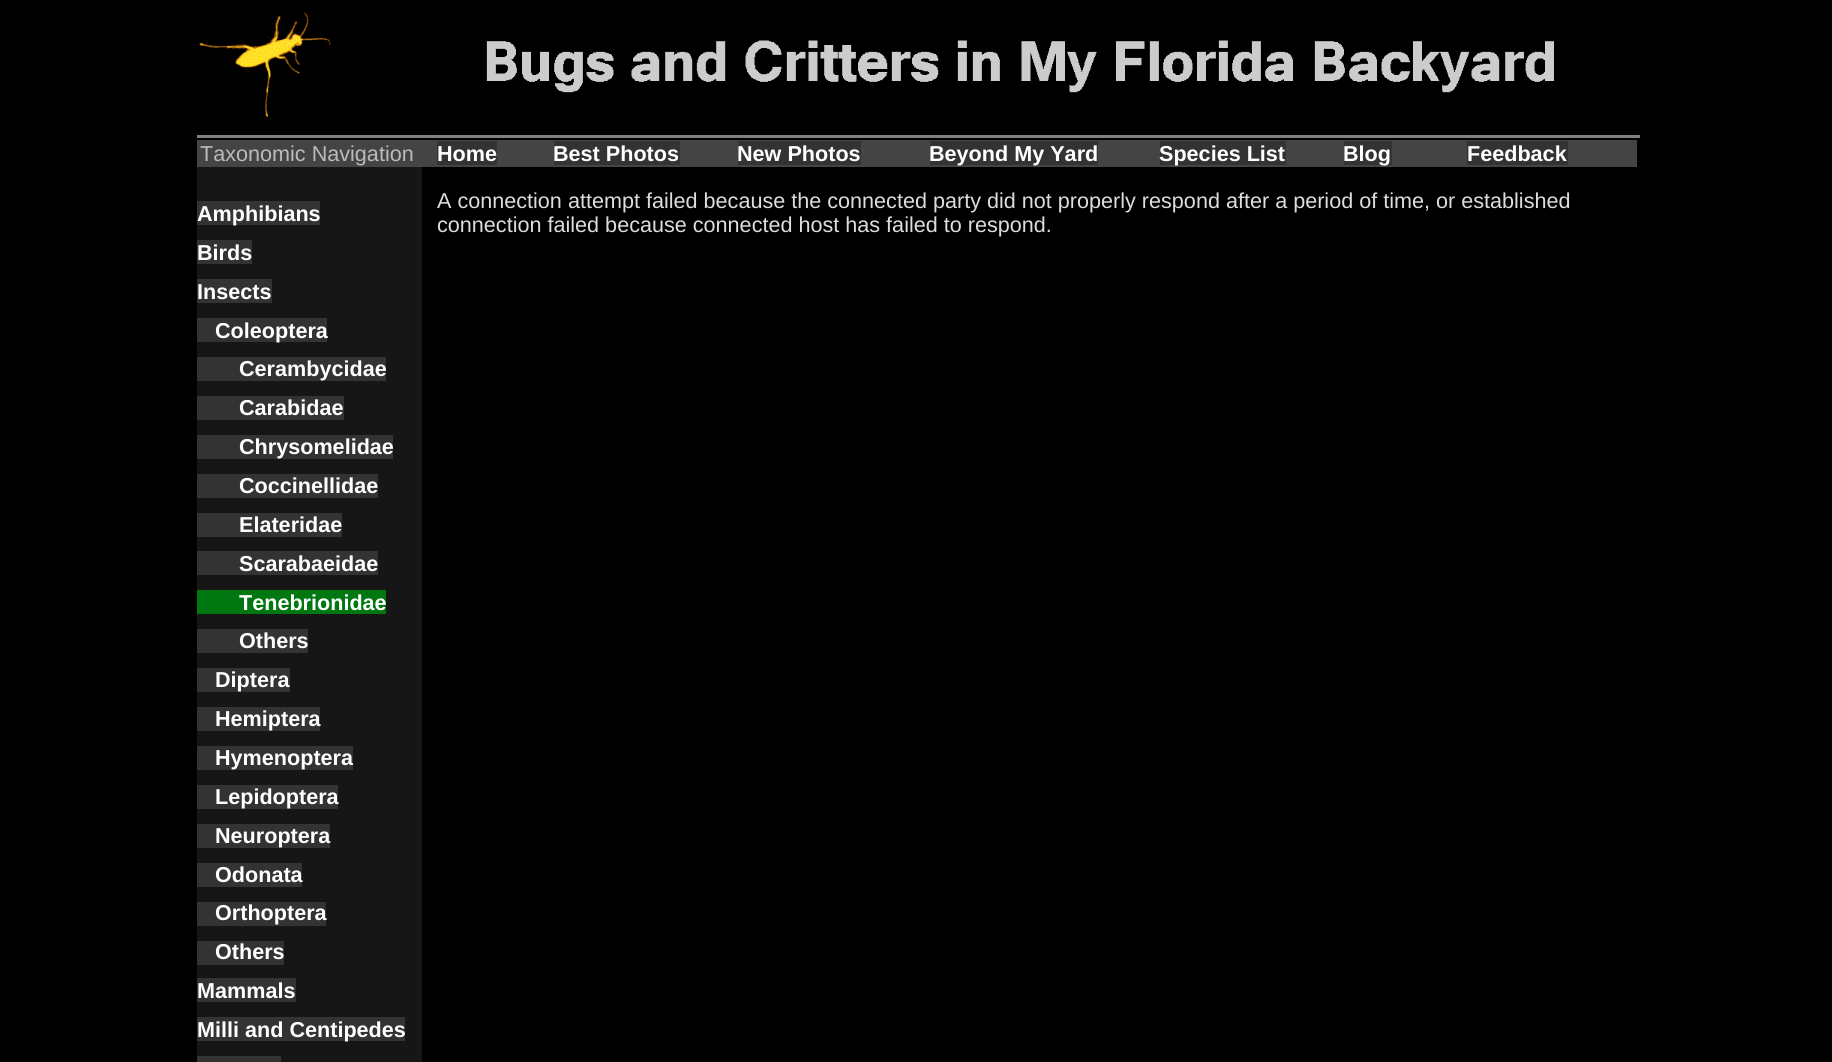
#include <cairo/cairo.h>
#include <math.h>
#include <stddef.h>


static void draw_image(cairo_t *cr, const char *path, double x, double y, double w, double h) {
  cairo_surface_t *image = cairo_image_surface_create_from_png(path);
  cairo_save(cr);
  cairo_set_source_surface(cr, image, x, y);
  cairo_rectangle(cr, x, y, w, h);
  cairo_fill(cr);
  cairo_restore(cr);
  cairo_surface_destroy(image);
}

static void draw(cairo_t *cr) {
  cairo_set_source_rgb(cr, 0, 0, 0);
  cairo_paint(cr);
  draw_image(cr, "images/1.png", 199, 12, 1355, 105);
  cairo_set_source_rgb(cr, 128 / 255.0, 128 / 255.0, 128 / 255.0);
  cairo_rectangle(cr, 197, 135, 1443, 3);
  cairo_fill(cr);
  cairo_set_source_rgb(cr, 68 / 255.0, 68 / 255.0, 68 / 255.0);
  cairo_rectangle(cr, 197, 140, 1440, 27);
  cairo_fill(cr);
  cairo_set_source_rgb(cr, 51 / 255.0, 51 / 255.0, 51 / 255.0);
  cairo_rectangle(cr, 437, 141, 60, 24);
  cairo_fill(cr);
  cairo_rectangle(cr, 554, 141, 126, 24);
  cairo_fill(cr);
  cairo_rectangle(cr, 738, 141, 123, 24);
  cairo_fill(cr);
  cairo_rectangle(cr, 930, 141, 168, 24);
  cairo_fill(cr);
  cairo_rectangle(cr, 1160, 141, 126, 24);
  cairo_fill(cr);
  cairo_rectangle(cr, 1344, 141, 48, 24);
  cairo_fill(cr);
  cairo_rectangle(cr, 1467, 141, 101, 24);
  cairo_fill(cr);
  cairo_set_source_rgb(cr, 22 / 255.0, 22 / 255.0, 22 / 255.0);
  cairo_rectangle(cr, 197, 167, 225, 895);
  cairo_fill(cr);
  cairo_set_source_rgb(cr, 51 / 255.0, 51 / 255.0, 51 / 255.0);
  cairo_rectangle(cr, 197, 201, 123, 24);
  cairo_fill(cr);
  cairo_rectangle(cr, 197, 240, 55, 24);
  cairo_fill(cr);
  cairo_rectangle(cr, 197, 279, 75, 24);
  cairo_fill(cr);
  cairo_rectangle(cr, 197, 318, 130, 24);
  cairo_fill(cr);
  cairo_rectangle(cr, 197, 357, 189, 24);
  cairo_fill(cr);
  cairo_rectangle(cr, 197, 396, 147, 24);
  cairo_fill(cr);
  cairo_rectangle(cr, 197, 435, 196, 24);
  cairo_fill(cr);
  cairo_rectangle(cr, 197, 474, 181, 24);
  cairo_fill(cr);
  cairo_rectangle(cr, 197, 513, 145, 24);
  cairo_fill(cr);
  cairo_rectangle(cr, 197, 551, 181, 24);
  cairo_fill(cr);
  cairo_set_source_rgb(cr, 0, 119 / 255.0, 17 / 255.0);
  cairo_rectangle(cr, 197, 590, 189, 24);
  cairo_fill(cr);
  cairo_set_source_rgb(cr, 51 / 255.0, 51 / 255.0, 51 / 255.0);
  cairo_rectangle(cr, 197, 629, 111, 24);
  cairo_fill(cr);
  cairo_rectangle(cr, 197, 668, 93, 24);
  cairo_fill(cr);
  cairo_rectangle(cr, 197, 707, 123, 24);
  cairo_fill(cr);
  cairo_rectangle(cr, 197, 746, 156, 24);
  cairo_fill(cr);
  cairo_rectangle(cr, 197, 785, 141, 24);
  cairo_fill(cr);
  cairo_rectangle(cr, 197, 824, 133, 24);
  cairo_fill(cr);
  cairo_rectangle(cr, 197, 863, 105, 24);
  cairo_fill(cr);
  cairo_rectangle(cr, 197, 902, 129, 24);
  cairo_fill(cr);
  cairo_rectangle(cr, 197, 941, 87, 24);
  cairo_fill(cr);
  cairo_rectangle(cr, 197, 978, 99, 24);
  cairo_fill(cr);
  cairo_rectangle(cr, 197, 1017, 208, 24);
  cairo_fill(cr);
  cairo_rectangle(cr, 197, 1056, 84, 6);
  cairo_fill(cr);
  cairo_select_font_face(cr, "Liberation Sans", CAIRO_FONT_SLANT_NORMAL, CAIRO_FONT_WEIGHT_NORMAL);
  cairo_set_font_size(cr, 21.6);
  cairo_set_source_rgb(cr, 187 / 255.0, 187 / 255.0, 187 / 255.0);
  cairo_move_to(cr, 200, 161);
  cairo_show_text(cr, "Taxonomic Navigation");
  cairo_select_font_face(cr, "Liberation Sans", CAIRO_FONT_SLANT_NORMAL, CAIRO_FONT_WEIGHT_BOLD);
  cairo_set_source_rgb(cr, 1, 1, 1);
  cairo_move_to(cr, 437, 161);
  cairo_show_text(cr, "Home");
  cairo_move_to(cr, 553, 161);
  cairo_show_text(cr, "Best Photos");
  cairo_move_to(cr, 737, 161);
  cairo_show_text(cr, "New Photos");
  cairo_move_to(cr, 929, 161);
  cairo_show_text(cr, "Beyond My Yard");
  cairo_move_to(cr, 1159, 161);
  cairo_show_text(cr, "Species List");
  cairo_move_to(cr, 1343, 161);
  cairo_show_text(cr, "Blog");
  cairo_move_to(cr, 1467, 161);
  cairo_show_text(cr, "Feedback");
  cairo_move_to(cr, 197, 221);
  cairo_show_text(cr, "Amphibians");
  cairo_move_to(cr, 197, 260);
  cairo_show_text(cr, "Birds");
  cairo_move_to(cr, 197, 299);
  cairo_show_text(cr, "Insects");
  cairo_move_to(cr, 215, 338);
  cairo_show_text(cr, "Coleoptera");
  cairo_move_to(cr, 239, 376);
  cairo_show_text(cr, "Cerambycidae");
  cairo_move_to(cr, 239, 415);
  cairo_show_text(cr, "Carabidae");
  cairo_move_to(cr, 239, 454);
  cairo_show_text(cr, "Chrysomelidae");
  cairo_move_to(cr, 239, 493);
  cairo_show_text(cr, "Coccinellidae");
  cairo_move_to(cr, 239, 532);
  cairo_show_text(cr, "Elateridae");
  cairo_move_to(cr, 239, 571);
  cairo_show_text(cr, "Scarabaeidae");
  cairo_move_to(cr, 239, 610);
  cairo_show_text(cr, "Tenebrionidae");
  cairo_move_to(cr, 239, 648);
  cairo_show_text(cr, "Others");
  cairo_move_to(cr, 215, 687);
  cairo_show_text(cr, "Diptera");
  cairo_move_to(cr, 215, 726);
  cairo_show_text(cr, "Hemiptera");
  cairo_move_to(cr, 215, 765);
  cairo_show_text(cr, "Hymenoptera");
  cairo_move_to(cr, 215, 804);
  cairo_show_text(cr, "Lepidoptera");
  cairo_move_to(cr, 215, 843);
  cairo_show_text(cr, "Neuroptera");
  cairo_move_to(cr, 215, 882);
  cairo_show_text(cr, "Odonata");
  cairo_move_to(cr, 215, 920);
  cairo_show_text(cr, "Orthoptera");
  cairo_move_to(cr, 215, 959);
  cairo_show_text(cr, "Others");
  cairo_move_to(cr, 197, 998);
  cairo_show_text(cr, "Mammals");
  cairo_move_to(cr, 197, 1037);
  cairo_show_text(cr, "Milli and Centipedes");
  cairo_select_font_face(cr, "Liberation Sans", CAIRO_FONT_SLANT_NORMAL, CAIRO_FONT_WEIGHT_NORMAL);
  cairo_set_source_rgb(cr, 221 / 255.0, 221 / 255.0, 221 / 255.0);
  cairo_move_to(cr, 437, 208);
  cairo_show_text(cr, "A connection attempt failed because the connected party did not properly respond after a period of time, or established");
  cairo_move_to(cr, 437, 232);
  cairo_show_text(cr, "connection failed because connected host has failed to respond.");
}

int main(void) {
  cairo_surface_t *surface = cairo_image_surface_create(CAIRO_FORMAT_RGB24, 1832, 1062);
  cairo_t *cr = cairo_create(surface);
  cairo_font_options_t *options = cairo_font_options_create();
  cairo_font_options_set_hint_metrics(options, CAIRO_HINT_METRICS_OFF);
  cairo_font_options_set_hint_style(options, CAIRO_HINT_STYLE_NONE);
  cairo_set_font_options(cr, options);
  cairo_set_miter_limit(cr, 4);
  draw(cr);
  cairo_surface_write_to_png(surface, "out.png");
  cairo_font_options_destroy(options);
  cairo_destroy(cr);
  cairo_surface_destroy(surface);
  return 0;
}
